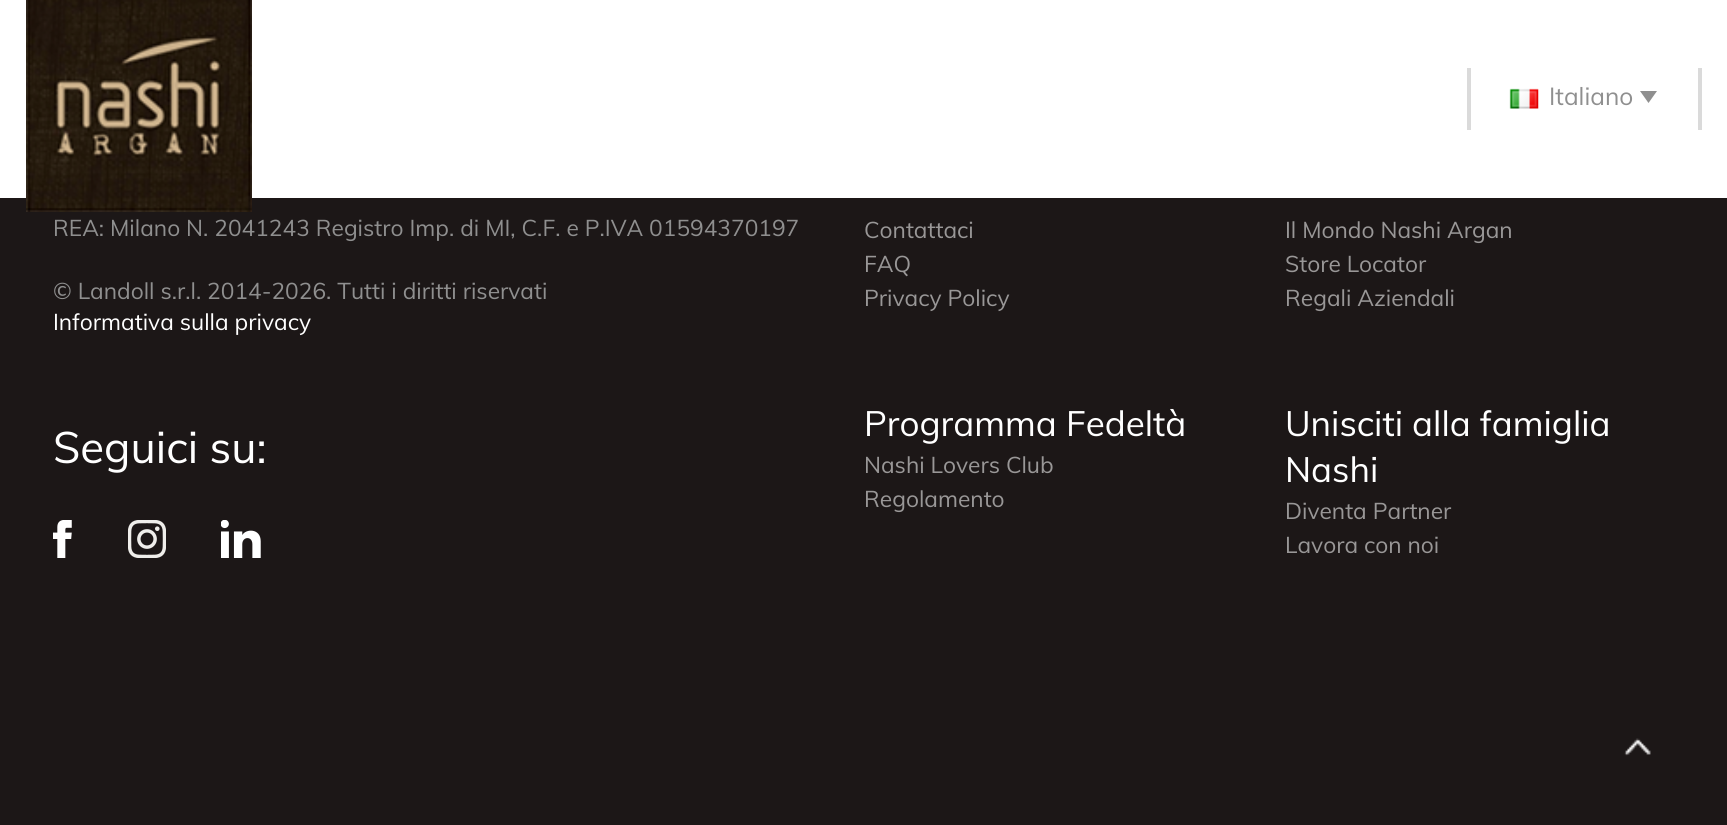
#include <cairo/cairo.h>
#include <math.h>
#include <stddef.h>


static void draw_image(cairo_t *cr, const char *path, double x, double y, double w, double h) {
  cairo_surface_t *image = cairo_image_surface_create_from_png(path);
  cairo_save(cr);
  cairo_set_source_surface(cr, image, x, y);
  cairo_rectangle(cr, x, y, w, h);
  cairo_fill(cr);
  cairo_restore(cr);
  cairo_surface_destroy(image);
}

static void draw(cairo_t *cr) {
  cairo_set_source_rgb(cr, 28 / 255.0, 23 / 255.0, 23 / 255.0);
  cairo_paint(cr);
  cairo_set_source_rgb(cr, 1, 1, 1);
  cairo_rectangle(cr, 0, 0, 1727, 198);
  cairo_fill(cr);
  draw_image(cr, "images/1.png", 26, 0, 226, 212);
  cairo_set_source_rgb(cr, 218 / 255.0, 218 / 255.0, 218 / 255.0);
  cairo_rectangle(cr, 1698, 68, 4, 62);
  cairo_fill(cr);
  cairo_rectangle(cr, 1467, 68, 4, 62);
  cairo_fill(cr);
  draw_image(cr, "images/2.png", 1509, 88, 30, 21);
  cairo_set_source_rgb(cr, 143 / 255.0, 143 / 255.0, 143 / 255.0);
  cairo_new_path(cr);
  cairo_move_to(cr, 1640, 91);
  cairo_line_to(cr, 1657, 91);
  cairo_line_to(cr, 1648.5, 103);
  cairo_close_path(cr);
  cairo_fill(cr);
  draw_image(cr, "images/3.png", 53, 520, 19, 38);
  draw_image(cr, "images/4.png", 128, 520, 38, 38);
  draw_image(cr, "images/5.png", 221, 520, 40, 38);
  draw_image(cr, "images/6.png", 1624, 738, 27, 18);
  cairo_select_font_face(cr, "Muli", CAIRO_FONT_SLANT_NORMAL, CAIRO_FONT_WEIGHT_NORMAL);
  cairo_set_font_size(cr, 24.5);
  cairo_move_to(cr, 1549, 105);
  cairo_show_text(cr, "Italiano");
  cairo_set_font_size(cr, 22.75);
  cairo_move_to(cr, 53, 236);
  cairo_show_text(cr, "REA: Milano N. 2041243 Registro Imp. di MI, C.F. e P.IVA 01594370197");
  cairo_move_to(cr, 53, 299);
  cairo_show_text(cr, "© Landoll s.r.l. 2014-2026. Tutti i diritti riservati");
  cairo_set_source_rgb(cr, 1, 1, 1);
  cairo_move_to(cr, 53, 330);
  cairo_show_text(cr, "Informativa sulla privacy");
  cairo_set_font_size(cr, 43.75);
  cairo_move_to(cr, 53, 463);
  cairo_show_text(cr, "Seguici su:");
  cairo_set_font_size(cr, 22.75);
  cairo_set_source_rgb(cr, 153 / 255.0, 151 / 255.0, 151 / 255.0);
  cairo_move_to(cr, 864, 238);
  cairo_show_text(cr, "Contattaci");
  cairo_move_to(cr, 864, 272);
  cairo_show_text(cr, "FAQ");
  cairo_move_to(cr, 864, 306);
  cairo_show_text(cr, "Privacy Policy");
  cairo_move_to(cr, 1285, 238);
  cairo_show_text(cr, "Il Mondo Nashi Argan");
  cairo_move_to(cr, 1285, 272);
  cairo_show_text(cr, "Store Locator");
  cairo_move_to(cr, 1285, 306);
  cairo_show_text(cr, "Regali Aziendali");
  cairo_set_font_size(cr, 35);
  cairo_set_source_rgb(cr, 1, 1, 1);
  cairo_move_to(cr, 864, 436);
  cairo_show_text(cr, "Programma Fedeltà");
  cairo_set_font_size(cr, 22.75);
  cairo_set_source_rgb(cr, 153 / 255.0, 151 / 255.0, 151 / 255.0);
  cairo_move_to(cr, 864, 473);
  cairo_show_text(cr, "Nashi Lovers Club");
  cairo_move_to(cr, 864, 507);
  cairo_show_text(cr, "Regolamento");
  cairo_set_font_size(cr, 35);
  cairo_set_source_rgb(cr, 1, 1, 1);
  cairo_move_to(cr, 1285, 436);
  cairo_show_text(cr, "Unisciti alla famiglia");
  cairo_move_to(cr, 1285, 482);
  cairo_show_text(cr, "Nashi");
  cairo_set_font_size(cr, 22.75);
  cairo_set_source_rgb(cr, 153 / 255.0, 151 / 255.0, 151 / 255.0);
  cairo_move_to(cr, 1285, 519);
  cairo_show_text(cr, "Diventa Partner");
  cairo_move_to(cr, 1285, 553);
  cairo_show_text(cr, "Lavora con noi");
}

int main(void) {
  cairo_surface_t *surface = cairo_image_surface_create(CAIRO_FORMAT_RGB24, 1727, 825);
  cairo_t *cr = cairo_create(surface);
  cairo_font_options_t *options = cairo_font_options_create();
  cairo_font_options_set_hint_metrics(options, CAIRO_HINT_METRICS_OFF);
  cairo_font_options_set_hint_style(options, CAIRO_HINT_STYLE_NONE);
  cairo_set_font_options(cr, options);
  cairo_set_miter_limit(cr, 4);
  draw(cr);
  cairo_surface_write_to_png(surface, "out.png");
  cairo_font_options_destroy(options);
  cairo_destroy(cr);
  cairo_surface_destroy(surface);
  return 0;
}
